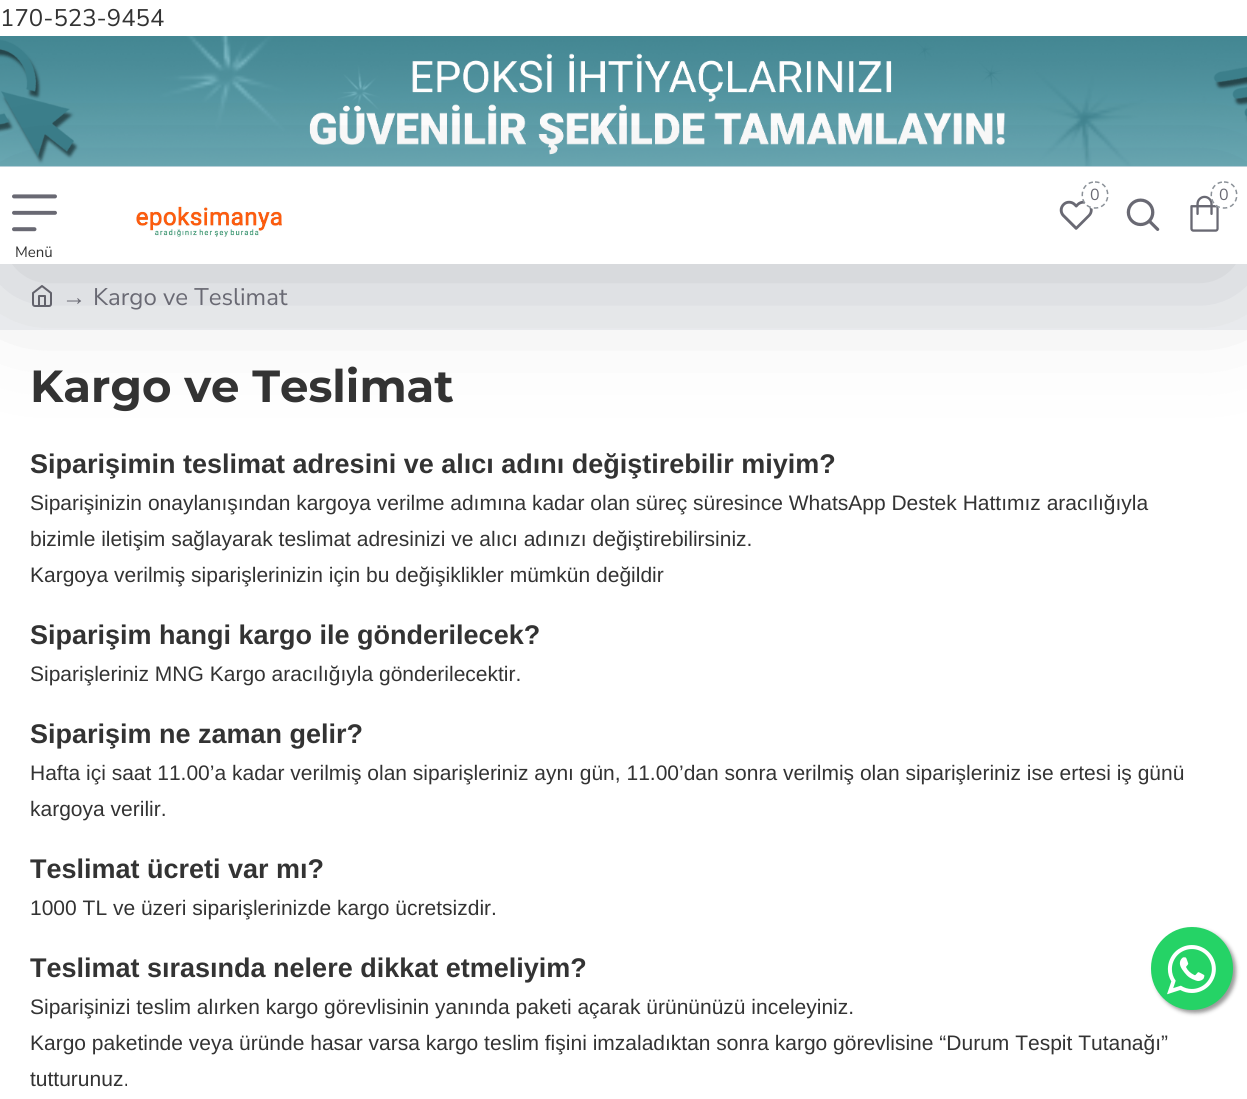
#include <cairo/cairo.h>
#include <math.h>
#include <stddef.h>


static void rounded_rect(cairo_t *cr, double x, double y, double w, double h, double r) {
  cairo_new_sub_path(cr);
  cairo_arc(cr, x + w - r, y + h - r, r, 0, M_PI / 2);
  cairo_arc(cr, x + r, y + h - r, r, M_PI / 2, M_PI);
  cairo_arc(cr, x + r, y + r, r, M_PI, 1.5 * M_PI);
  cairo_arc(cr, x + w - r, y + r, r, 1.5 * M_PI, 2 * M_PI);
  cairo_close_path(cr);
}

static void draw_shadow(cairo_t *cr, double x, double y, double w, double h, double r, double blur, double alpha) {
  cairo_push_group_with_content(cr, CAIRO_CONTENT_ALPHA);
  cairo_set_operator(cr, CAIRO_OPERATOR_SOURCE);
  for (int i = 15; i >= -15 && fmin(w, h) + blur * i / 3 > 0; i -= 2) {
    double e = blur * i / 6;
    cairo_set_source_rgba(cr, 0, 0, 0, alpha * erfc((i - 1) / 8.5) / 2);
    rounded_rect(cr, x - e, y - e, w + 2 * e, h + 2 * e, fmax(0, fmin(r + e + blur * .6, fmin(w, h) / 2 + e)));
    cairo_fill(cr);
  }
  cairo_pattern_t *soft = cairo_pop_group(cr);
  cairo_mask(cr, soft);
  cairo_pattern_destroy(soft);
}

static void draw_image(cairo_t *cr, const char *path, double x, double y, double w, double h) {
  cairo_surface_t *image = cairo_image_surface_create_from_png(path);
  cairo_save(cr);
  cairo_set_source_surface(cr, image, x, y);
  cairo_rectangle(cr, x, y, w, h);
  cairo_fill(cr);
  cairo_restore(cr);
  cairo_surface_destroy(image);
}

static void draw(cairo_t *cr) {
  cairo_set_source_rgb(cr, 1, 1, 1);
  cairo_paint(cr);
  cairo_set_source_rgb(cr, 219 / 255.0, 232 / 255.0, 242 / 255.0);
  cairo_rectangle(cr, 0, 166, 1247, 1);
  cairo_fill(cr);
  draw_image(cr, "images/1.png", 0, 36, 1247, 131);
  cairo_set_source_rgb(cr, 240 / 255.0, 242 / 255.0, 245 / 255.0);
  cairo_rectangle(cr, 0, 264, 1247, 66);
  cairo_fill(cr);
  draw_image(cr, "images/7.png", 32, 285, 20, 22);
  cairo_save(cr);
  cairo_set_fill_rule(cr, CAIRO_FILL_RULE_EVEN_ODD);
  cairo_new_path(cr);
  cairo_move_to(cr, 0, 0);
  cairo_line_to(cr, 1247, 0);
  cairo_line_to(cr, 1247, 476);
  cairo_line_to(cr, 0, 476);
  cairo_close_path(cr);
  cairo_move_to(cr, 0, 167);
  cairo_line_to(cr, 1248, 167);
  cairo_line_to(cr, 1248, 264);
  cairo_line_to(cr, 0, 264);
  cairo_close_path(cr);
  cairo_clip(cr);
  cairo_set_source_rgb(cr, 0, 0, 0);
  draw_shadow(cr, 15, 204, 1218, 68, 0, 67.5, 0.2);
  cairo_restore(cr);
  draw_image(cr, "images/2.png", 1059, 200, 34, 30);
  cairo_set_source_rgb(cr, 1, 1, 1);
  cairo_arc(cr, 1095.5, 195.5, 13.5, 0, 2 * M_PI);
  cairo_fill(cr);
  cairo_new_path(cr);
  cairo_move_to(cr, 1095, 182);
  cairo_curve_to(cr, 1112, 182, 1112, 208, 1095, 208);
  cairo_curve_to(cr, 1078, 208, 1078, 182, 1095, 182);
  cairo_close_path(cr);
  cairo_set_source_rgb(cr, 139 / 255.0, 145 / 255.0, 152 / 255.0);
  cairo_set_line_width(cr, 1.5);
  cairo_set_dash(cr, (double[]){4.5, 3}, 2, 0);
  cairo_stroke(cr);
  draw_image(cr, "images/3.png", 1190, 195, 29, 37);
  cairo_set_source_rgb(cr, 1, 1, 1);
  cairo_arc(cr, 1224.5, 195.5, 13.5, 0, 2 * M_PI);
  cairo_fill(cr);
  cairo_new_path(cr);
  cairo_move_to(cr, 1224, 182);
  cairo_curve_to(cr, 1241, 182, 1241, 208, 1224, 208);
  cairo_curve_to(cr, 1207, 208, 1207, 182, 1224, 182);
  cairo_close_path(cr);
  cairo_set_source_rgb(cr, 139 / 255.0, 145 / 255.0, 152 / 255.0);
  cairo_stroke(cr);
  draw_image(cr, "images/4.png", 1126, 198, 34, 33);
  draw_image(cr, "images/5.png", 12, 194, 45, 38);
  draw_image(cr, "images/6.png", 136, 206, 146, 31);
  cairo_set_source_rgb(cr, 153 / 255.0, 153 / 255.0, 153 / 255.0);
  draw_shadow(cr, 1154, 930, 82, 83, 41, 2, 1);
  cairo_set_source_rgb(cr, 37 / 255.0, 211 / 255.0, 102 / 255.0);
  rounded_rect(cr, 1151, 927, 82, 83, 41);
  cairo_fill(cr);
  draw_image(cr, "images/8.png", 1167, 945, 49, 50);
  cairo_select_font_face(cr, "Nunito Sans", CAIRO_FONT_SLANT_NORMAL, CAIRO_FONT_WEIGHT_NORMAL);
  cairo_set_font_size(cr, 24);
  cairo_set_source_rgb(cr, 51 / 255.0, 51 / 255.0, 51 / 255.0);
  cairo_move_to(cr, 0, 26);
  cairo_show_text(cr, "170-523-9454");
  cairo_set_font_size(cr, 16);
  cairo_set_source_rgb(cr, 105 / 255.0, 105 / 255.0, 115 / 255.0);
  cairo_move_to(cr, 1090, 200);
  cairo_show_text(cr, "0");
  cairo_move_to(cr, 1219, 200);
  cairo_show_text(cr, "0");
  cairo_set_font_size(cr, 15);
  cairo_set_source_rgb(cr, 51 / 255.0, 51 / 255.0, 51 / 255.0);
  cairo_move_to(cr, 15, 257);
  cairo_show_text(cr, "Menü");
  cairo_select_font_face(cr, "Liberation Serif", CAIRO_FONT_SLANT_NORMAL, CAIRO_FONT_WEIGHT_NORMAL);
  cairo_set_font_size(cr, 24);
  cairo_set_source_rgb(cr, 105 / 255.0, 105 / 255.0, 115 / 255.0);
  cairo_move_to(cr, 62, 305);
  cairo_show_text(cr, "→");
  cairo_select_font_face(cr, "Nunito Sans", CAIRO_FONT_SLANT_NORMAL, CAIRO_FONT_WEIGHT_NORMAL);
  cairo_move_to(cr, 93, 305);
  cairo_show_text(cr, "Kargo ve Teslimat");
  cairo_select_font_face(cr, "Montserrat", CAIRO_FONT_SLANT_NORMAL, CAIRO_FONT_WEIGHT_BOLD);
  cairo_set_font_size(cr, 45);
  cairo_set_source_rgb(cr, 51 / 255.0, 51 / 255.0, 51 / 255.0);
  cairo_move_to(cr, 30, 402);
  cairo_show_text(cr, "Kargo ve Teslimat");
  cairo_select_font_face(cr, "Liberation Sans", CAIRO_FONT_SLANT_NORMAL, CAIRO_FONT_WEIGHT_BOLD);
  cairo_set_font_size(cr, 27);
  cairo_move_to(cr, 30, 473);
  cairo_show_text(cr, "Siparişimin teslimat adresini ve alıcı adını değiştirebilir miyim?");
  cairo_select_font_face(cr, "Liberation Sans", CAIRO_FONT_SLANT_NORMAL, CAIRO_FONT_WEIGHT_NORMAL);
  cairo_set_font_size(cr, 21);
  cairo_move_to(cr, 30, 510);
  cairo_show_text(cr, "Siparişinizin onaylanışından kargoya verilme adımına kadar olan süreç süresince WhatsApp Destek Hattımız aracılığıyla");
  cairo_move_to(cr, 30, 546);
  cairo_show_text(cr, "bizimle iletişim sağlayarak teslimat adresinizi ve alıcı adınızı değiştirebilirsiniz.");
  cairo_move_to(cr, 30, 582);
  cairo_show_text(cr, "Kargoya verilmiş siparişlerinizin için bu değişiklikler mümkün değildir");
  cairo_select_font_face(cr, "Liberation Sans", CAIRO_FONT_SLANT_NORMAL, CAIRO_FONT_WEIGHT_BOLD);
  cairo_set_font_size(cr, 27);
  cairo_move_to(cr, 30, 644);
  cairo_show_text(cr, "Siparişim hangi kargo ile gönderilecek?");
  cairo_select_font_face(cr, "Liberation Sans", CAIRO_FONT_SLANT_NORMAL, CAIRO_FONT_WEIGHT_NORMAL);
  cairo_set_font_size(cr, 21);
  cairo_move_to(cr, 30, 681);
  cairo_show_text(cr, "Siparişleriniz MNG Kargo aracılığıyla gönderilecektir.");
  cairo_select_font_face(cr, "Liberation Sans", CAIRO_FONT_SLANT_NORMAL, CAIRO_FONT_WEIGHT_BOLD);
  cairo_set_font_size(cr, 27);
  cairo_move_to(cr, 30, 743);
  cairo_show_text(cr, "Siparişim ne zaman gelir?");
  cairo_select_font_face(cr, "Liberation Sans", CAIRO_FONT_SLANT_NORMAL, CAIRO_FONT_WEIGHT_NORMAL);
  cairo_set_font_size(cr, 21);
  cairo_move_to(cr, 30, 780);
  cairo_show_text(cr, "Hafta içi saat 11.00’a kadar verilmiş olan siparişleriniz aynı gün, 11.00’dan sonra verilmiş olan siparişleriniz ise ertesi iş günü");
  cairo_move_to(cr, 30, 816);
  cairo_show_text(cr, "kargoya verilir.");
  cairo_select_font_face(cr, "Liberation Sans", CAIRO_FONT_SLANT_NORMAL, CAIRO_FONT_WEIGHT_BOLD);
  cairo_set_font_size(cr, 27);
  cairo_move_to(cr, 30, 878);
  cairo_show_text(cr, "Teslimat ücreti var mı?");
  cairo_select_font_face(cr, "Liberation Sans", CAIRO_FONT_SLANT_NORMAL, CAIRO_FONT_WEIGHT_NORMAL);
  cairo_set_font_size(cr, 21);
  cairo_move_to(cr, 30, 915);
  cairo_show_text(cr, "1000 TL ve üzeri siparişlerinizde kargo ücretsizdir.");
  cairo_select_font_face(cr, "Liberation Sans", CAIRO_FONT_SLANT_NORMAL, CAIRO_FONT_WEIGHT_BOLD);
  cairo_set_font_size(cr, 27);
  cairo_move_to(cr, 30, 977);
  cairo_show_text(cr, "Teslimat sırasında nelere dikkat etmeliyim?");
  cairo_select_font_face(cr, "Liberation Sans", CAIRO_FONT_SLANT_NORMAL, CAIRO_FONT_WEIGHT_NORMAL);
  cairo_set_font_size(cr, 21);
  cairo_move_to(cr, 30, 1014);
  cairo_show_text(cr, "Siparişinizi teslim alırken kargo görevlisinin yanında paketi açarak ürününüzü inceleyiniz.");
  cairo_move_to(cr, 30, 1050);
  cairo_show_text(cr, "Kargo paketinde veya üründe hasar varsa kargo teslim fişini imzaladıktan sonra kargo görevlisine “Durum Tespit Tutanağı”");
  cairo_move_to(cr, 30, 1086);
  cairo_show_text(cr, "tutturunuz.");
}

int main(void) {
  cairo_surface_t *surface = cairo_image_surface_create(CAIRO_FORMAT_RGB24, 1247, 1099);
  cairo_t *cr = cairo_create(surface);
  cairo_font_options_t *options = cairo_font_options_create();
  cairo_font_options_set_hint_metrics(options, CAIRO_HINT_METRICS_OFF);
  cairo_font_options_set_hint_style(options, CAIRO_HINT_STYLE_NONE);
  cairo_set_font_options(cr, options);
  cairo_set_miter_limit(cr, 4);
  draw(cr);
  cairo_surface_write_to_png(surface, "out.png");
  cairo_font_options_destroy(options);
  cairo_destroy(cr);
  cairo_surface_destroy(surface);
  return 0;
}
